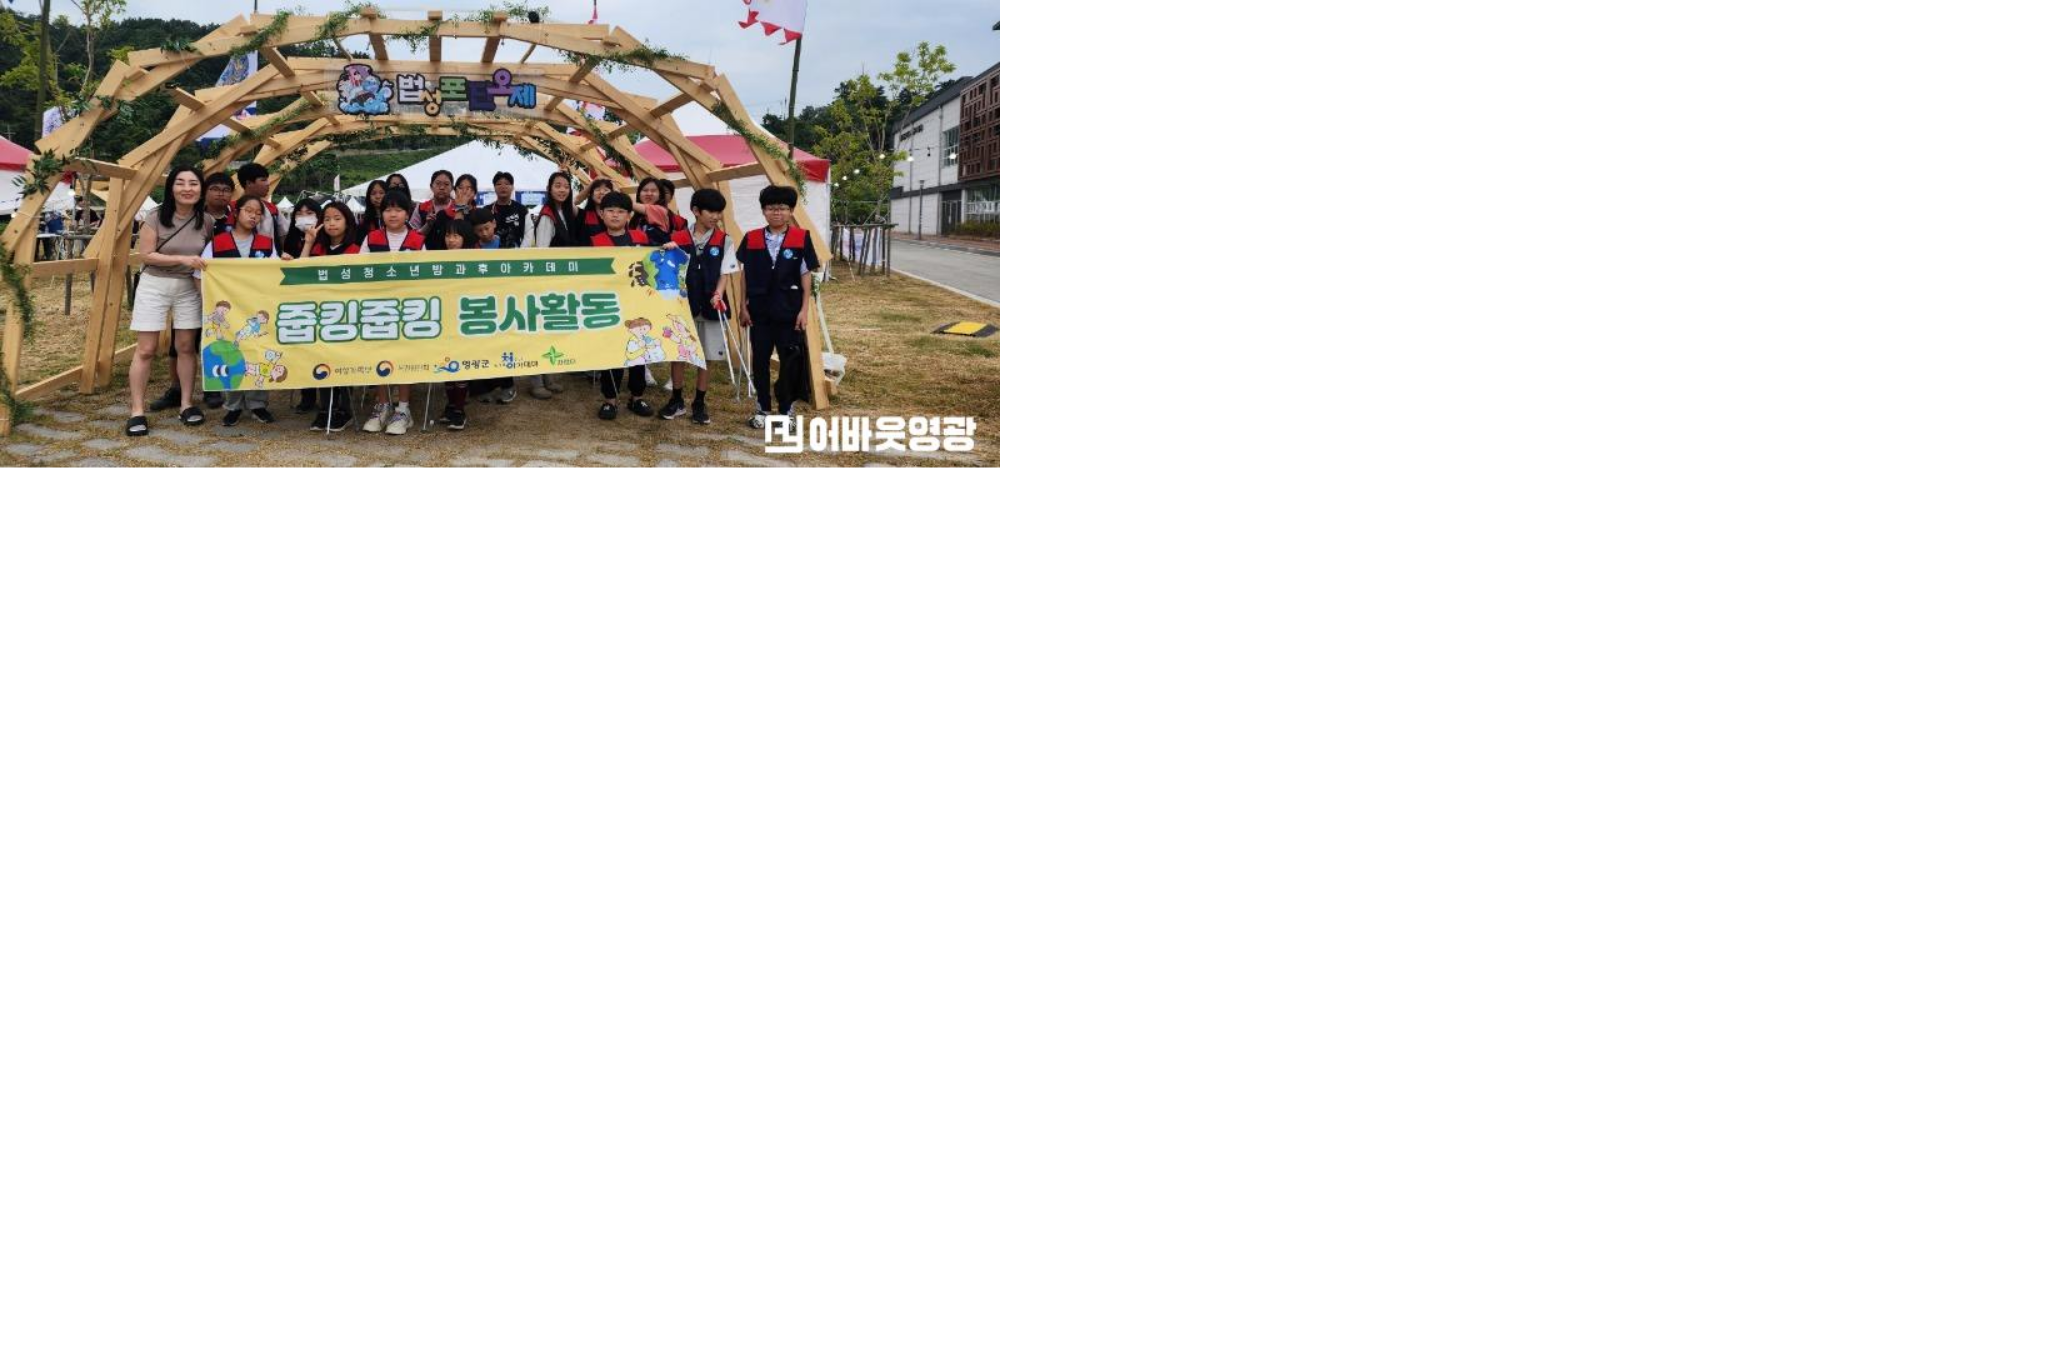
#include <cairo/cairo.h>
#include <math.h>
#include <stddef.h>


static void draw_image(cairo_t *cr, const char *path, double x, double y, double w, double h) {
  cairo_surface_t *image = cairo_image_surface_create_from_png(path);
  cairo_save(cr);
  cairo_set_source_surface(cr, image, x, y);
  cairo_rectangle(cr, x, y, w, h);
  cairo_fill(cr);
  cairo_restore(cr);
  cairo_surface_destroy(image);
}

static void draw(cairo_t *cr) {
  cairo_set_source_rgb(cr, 1, 1, 1);
  cairo_paint(cr);
  draw_image(cr, "images/1.png", 0, 0, 1000, 468);
}

int main(void) {
  cairo_surface_t *surface = cairo_image_surface_create(CAIRO_FORMAT_RGB24, 2049, 1350);
  cairo_t *cr = cairo_create(surface);
  cairo_font_options_t *options = cairo_font_options_create();
  cairo_font_options_set_hint_metrics(options, CAIRO_HINT_METRICS_OFF);
  cairo_font_options_set_hint_style(options, CAIRO_HINT_STYLE_NONE);
  cairo_set_font_options(cr, options);
  cairo_set_miter_limit(cr, 4);
  draw(cr);
  cairo_surface_write_to_png(surface, "out.png");
  cairo_font_options_destroy(options);
  cairo_destroy(cr);
  cairo_surface_destroy(surface);
  return 0;
}
